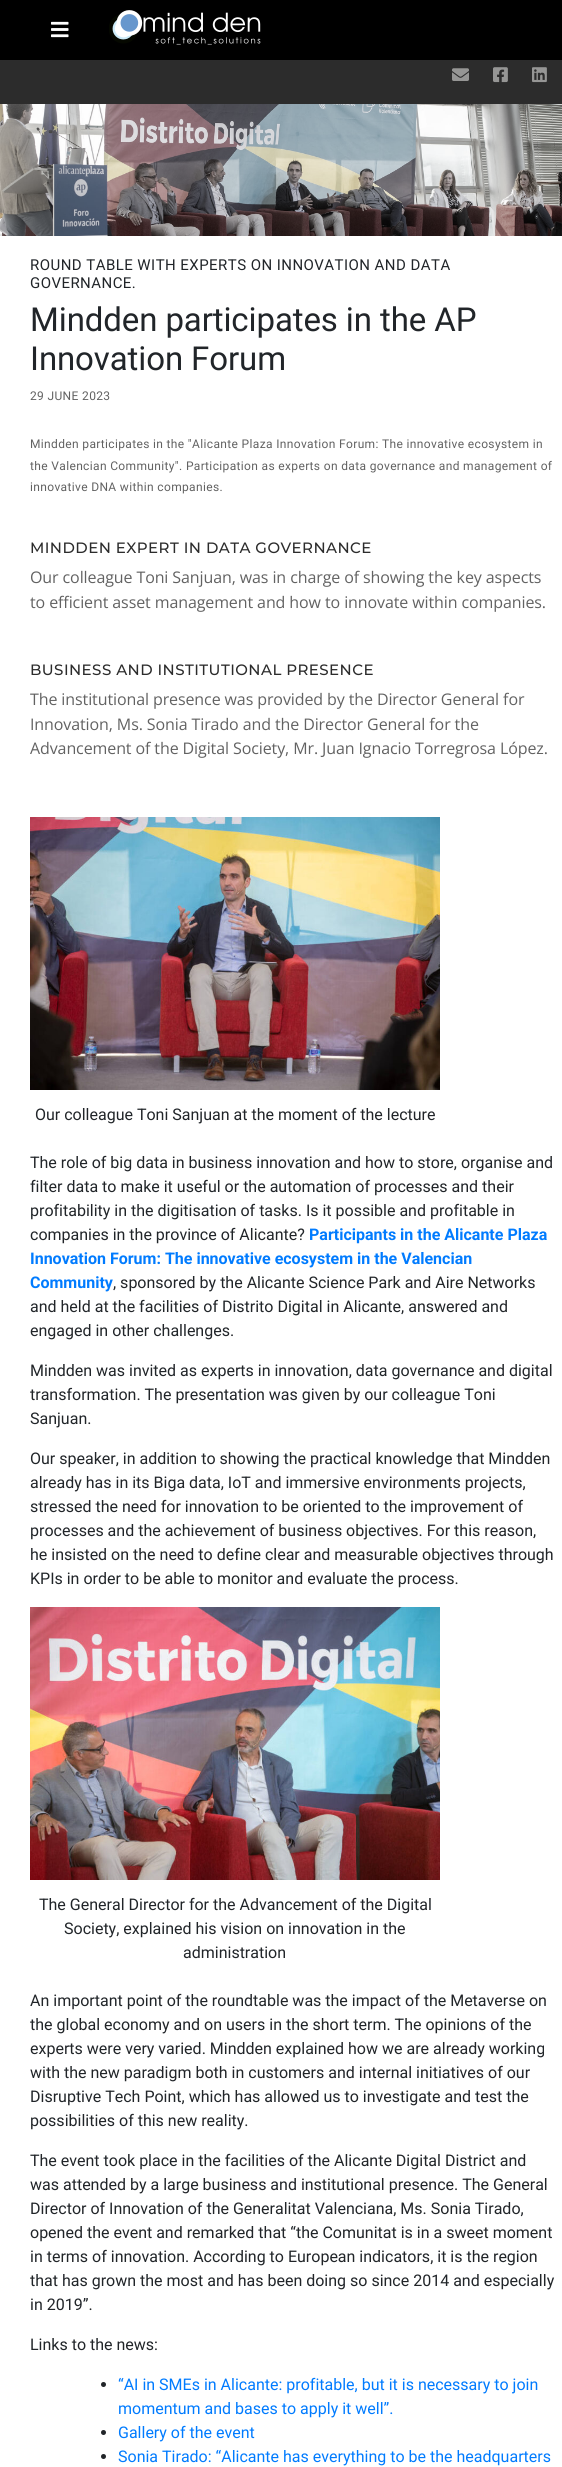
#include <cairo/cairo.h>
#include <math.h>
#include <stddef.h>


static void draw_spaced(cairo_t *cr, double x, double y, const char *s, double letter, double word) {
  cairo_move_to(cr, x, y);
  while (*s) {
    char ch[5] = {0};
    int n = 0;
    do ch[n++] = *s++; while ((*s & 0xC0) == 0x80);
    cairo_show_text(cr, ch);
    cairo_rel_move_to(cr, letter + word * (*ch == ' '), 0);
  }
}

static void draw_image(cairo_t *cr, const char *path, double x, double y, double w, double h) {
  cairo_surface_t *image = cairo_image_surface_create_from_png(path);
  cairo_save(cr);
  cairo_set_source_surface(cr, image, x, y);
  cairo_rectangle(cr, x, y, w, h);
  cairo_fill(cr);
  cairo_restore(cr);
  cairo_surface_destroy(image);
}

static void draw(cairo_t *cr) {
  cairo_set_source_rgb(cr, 1, 1, 1);
  cairo_paint(cr);
  cairo_set_source_rgb(cr, 0, 0, 0);
  cairo_rectangle(cr, 0, 0, 562, 60);
  cairo_fill(cr);
  draw_image(cr, "images/1.png", 51, 21, 18, 17);
  draw_image(cr, "images/2.png", 109, 10, 152, 35);
  cairo_set_source_rgb(cr, 44 / 255.0, 44 / 255.0, 44 / 255.0);
  cairo_rectangle(cr, 0, 60, 562, 44);
  cairo_fill(cr);
  draw_image(cr, "images/3.png", 452, 68, 17, 13);
  draw_image(cr, "images/4.png", 493, 67, 15, 16);
  draw_image(cr, "images/5.png", 532, 67, 15, 16);
  draw_image(cr, "images/6.png", 0, 104, 562, 132);
  draw_image(cr, "images/7.png", 30, 817, 410, 273);
  draw_image(cr, "images/8.png", 30, 1607, 410, 273);
  cairo_set_source_rgb(cr, 33 / 255.0, 37 / 255.0, 41 / 255.0);
  cairo_arc(cr, 103.5, 2384.5, 2.5, 0, 2 * M_PI);
  cairo_fill(cr);
  cairo_arc(cr, 103.5, 2432.5, 2.5, 0, 2 * M_PI);
  cairo_fill(cr);
  cairo_arc(cr, 103.5, 2456.5, 2.5, 0, 2 * M_PI);
  cairo_fill(cr);
  cairo_select_font_face(cr, "Roboto", CAIRO_FONT_SLANT_NORMAL, CAIRO_FONT_WEIGHT_NORMAL);
  cairo_set_font_size(cr, 15);
  draw_spaced(cr, 30, 270, "ROUND TABLE WITH EXPERTS ON INNOVATION AND DATA", 0.45, 0);
  draw_spaced(cr, 30, 288, "GOVERNANCE.", 0.45, 0);
  cairo_set_font_size(cr, 33);
  draw_spaced(cr, 30, 331, "Mindden participates in the AP", -0.1, 0);
  draw_spaced(cr, 30, 370, "Innovation Forum", -0.1, 0);
  cairo_set_font_size(cr, 12);
  cairo_set_source_rgb(cr, 98 / 255.0, 98 / 255.0, 98 / 255.0);
  draw_spaced(cr, 30, 400, "29 JUNE 2023", 0.35, 0);
  draw_spaced(cr, 30, 448, "Mindden participates in the \"Alicante Plaza Innovation Forum: The innovative ecosystem in", 0.35, 0);
  draw_spaced(cr, 30, 470, "the Valencian Community\". Participation as experts on data governance and management of", 0.35, 0);
  draw_spaced(cr, 30, 491, "innovative DNA within companies.", 0.35, 0);
  cairo_select_font_face(cr, "Montserrat Medium", CAIRO_FONT_SLANT_NORMAL, CAIRO_FONT_WEIGHT_NORMAL);
  cairo_set_font_size(cr, 15);
  cairo_set_source_rgb(cr, 44 / 255.0, 44 / 255.0, 44 / 255.0);
  draw_spaced(cr, 30, 553, "MINDDEN EXPERT IN DATA GOVERNANCE", 0.45, 0);
  cairo_select_font_face(cr, "Open Sans", CAIRO_FONT_SLANT_NORMAL, CAIRO_FONT_WEIGHT_NORMAL);
  cairo_set_font_size(cr, 16);
  cairo_set_source_rgb(cr, 98 / 255.0, 98 / 255.0, 98 / 255.0);
  draw_spaced(cr, 30, 583, "Our colleague Toni Sanjuan, was in charge of showing the key aspects", -0.1, 0);
  draw_spaced(cr, 30, 608, "to efficient asset management and how to innovate within companies.", -0.1, 0);
  cairo_select_font_face(cr, "Montserrat Medium", CAIRO_FONT_SLANT_NORMAL, CAIRO_FONT_WEIGHT_NORMAL);
  cairo_set_font_size(cr, 15);
  cairo_set_source_rgb(cr, 44 / 255.0, 44 / 255.0, 44 / 255.0);
  draw_spaced(cr, 30, 675, "BUSINESS AND INSTITUTIONAL PRESENCE", 0.45, 0);
  cairo_select_font_face(cr, "Open Sans", CAIRO_FONT_SLANT_NORMAL, CAIRO_FONT_WEIGHT_NORMAL);
  cairo_set_font_size(cr, 16);
  cairo_set_source_rgb(cr, 98 / 255.0, 98 / 255.0, 98 / 255.0);
  draw_spaced(cr, 30, 705, "The institutional presence was provided by the Director General for", -0.1, 0);
  draw_spaced(cr, 30, 730, "Innovation, Ms. Sonia Tirado and the Director General for the", -0.1, 0);
  draw_spaced(cr, 30, 754, "Advancement of the Digital Society, Mr. Juan Ignacio Torregrosa López.", -0.1, 0);
  cairo_select_font_face(cr, "Roboto", CAIRO_FONT_SLANT_NORMAL, CAIRO_FONT_WEIGHT_NORMAL);
  cairo_set_source_rgb(cr, 33 / 255.0, 37 / 255.0, 41 / 255.0);
  cairo_move_to(cr, 35, 1120);
  cairo_show_text(cr, "Our colleague Toni Sanjuan at the moment of the lecture");
  cairo_move_to(cr, 30, 1168);
  cairo_show_text(cr, "The role of big data in business innovation and how to store, organise and");
  cairo_move_to(cr, 30, 1192);
  cairo_show_text(cr, "filter data to make it useful or the automation of processes and their");
  cairo_move_to(cr, 30, 1216);
  cairo_show_text(cr, "profitability in the digitisation of tasks. Is it possible and profitable in");
  cairo_move_to(cr, 30, 1240);
  cairo_show_text(cr, "companies in the province of Alicante?");
  cairo_select_font_face(cr, "Roboto", CAIRO_FONT_SLANT_NORMAL, CAIRO_FONT_WEIGHT_BOLD);
  cairo_set_source_rgb(cr, 0, 123 / 255.0, 1);
  cairo_move_to(cr, 309, 1240);
  cairo_show_text(cr, "Participants in the Alicante Plaza");
  cairo_move_to(cr, 30, 1264);
  cairo_show_text(cr, "Innovation Forum: The innovative ecosystem in the Valencian");
  cairo_move_to(cr, 30, 1288);
  cairo_show_text(cr, "Community");
  cairo_select_font_face(cr, "Roboto", CAIRO_FONT_SLANT_NORMAL, CAIRO_FONT_WEIGHT_NORMAL);
  cairo_set_source_rgb(cr, 33 / 255.0, 37 / 255.0, 41 / 255.0);
  cairo_move_to(cr, 113, 1288);
  cairo_show_text(cr, ", sponsored by the Alicante Science Park and Aire Networks");
  cairo_move_to(cr, 30, 1312);
  cairo_show_text(cr, "and held at the facilities of Distrito Digital in Alicante, answered and");
  cairo_move_to(cr, 30, 1336);
  cairo_show_text(cr, "engaged in other challenges.");
  cairo_move_to(cr, 30, 1376);
  cairo_show_text(cr, "Mindden was invited as experts in innovation, data governance and digital");
  cairo_move_to(cr, 30, 1400);
  cairo_show_text(cr, "transformation. The presentation was given by our colleague Toni");
  cairo_move_to(cr, 30, 1424);
  cairo_show_text(cr, "Sanjuan.");
  cairo_move_to(cr, 30, 1464);
  cairo_show_text(cr, "Our speaker, in addition to showing the practical knowledge that Mindden");
  cairo_move_to(cr, 30, 1488);
  cairo_show_text(cr, "already has in its Biga data, IoT and immersive environments projects,");
  cairo_move_to(cr, 30, 1512);
  cairo_show_text(cr, "stressed the need for innovation to be oriented to the improvement of");
  cairo_move_to(cr, 30, 1536);
  cairo_show_text(cr, "processes and the achievement of business objectives. For this reason,");
  cairo_move_to(cr, 30, 1560);
  cairo_show_text(cr, "he insisted on the need to define clear and measurable objectives through");
  cairo_move_to(cr, 30, 1584);
  cairo_show_text(cr, "KPIs in order to be able to monitor and evaluate the process.");
  cairo_move_to(cr, 39, 1910);
  cairo_show_text(cr, "The General Director for the Advancement of the Digital");
  cairo_move_to(cr, 64, 1934);
  cairo_show_text(cr, "Society, explained his vision on innovation in the");
  cairo_move_to(cr, 183, 1958);
  cairo_show_text(cr, "administration");
  cairo_move_to(cr, 30, 2006);
  cairo_show_text(cr, "An important point of the roundtable was the impact of the Metaverse on");
  cairo_move_to(cr, 30, 2030);
  cairo_show_text(cr, "the global economy and on users in the short term. The opinions of the");
  cairo_move_to(cr, 30, 2054);
  cairo_show_text(cr, "experts were very varied. Mindden explained how we are already working");
  cairo_move_to(cr, 30, 2078);
  cairo_show_text(cr, "with the new paradigm both in customers and internal initiatives of our");
  cairo_move_to(cr, 30, 2102);
  cairo_show_text(cr, "Disruptive Tech Point, which has allowed us to investigate and test the");
  cairo_move_to(cr, 30, 2126);
  cairo_show_text(cr, "possibilities of this new reality.");
  cairo_move_to(cr, 30, 2166);
  cairo_show_text(cr, "The event took place in the facilities of the Alicante Digital District and");
  cairo_move_to(cr, 30, 2190);
  cairo_show_text(cr, "was attended by a large business and institutional presence. The General");
  cairo_move_to(cr, 30, 2214);
  cairo_show_text(cr, "Director of Innovation of the Generalitat Valenciana, Ms. Sonia Tirado,");
  cairo_move_to(cr, 30, 2238);
  cairo_show_text(cr, "opened the event and remarked that “the Comunitat is in a sweet moment");
  cairo_move_to(cr, 30, 2262);
  cairo_show_text(cr, "in terms of innovation. According to European indicators, it is the region");
  cairo_move_to(cr, 30, 2286);
  cairo_show_text(cr, "that has grown the most and has been doing so since 2014 and especially");
  cairo_move_to(cr, 30, 2310);
  cairo_show_text(cr, "in 2019”.");
  cairo_move_to(cr, 30, 2350);
  cairo_show_text(cr, "Links to the news:");
  cairo_set_source_rgb(cr, 0, 123 / 255.0, 1);
  cairo_move_to(cr, 118, 2390);
  cairo_show_text(cr, "“AI in SMEs in Alicante: profitable, but it is necessary to join");
  cairo_move_to(cr, 118, 2414);
  cairo_show_text(cr, "momentum and bases to apply it well”.");
  cairo_move_to(cr, 118, 2438);
  cairo_show_text(cr, "Gallery of the event");
  cairo_move_to(cr, 118, 2462);
  cairo_show_text(cr, "Sonia Tirado: “Alicante has everything to be the headquarters");
}

int main(void) {
  cairo_surface_t *surface = cairo_image_surface_create(CAIRO_FORMAT_RGB24, 562, 2467);
  cairo_t *cr = cairo_create(surface);
  cairo_font_options_t *options = cairo_font_options_create();
  cairo_font_options_set_hint_metrics(options, CAIRO_HINT_METRICS_OFF);
  cairo_font_options_set_hint_style(options, CAIRO_HINT_STYLE_NONE);
  cairo_set_font_options(cr, options);
  cairo_set_miter_limit(cr, 4);
  draw(cr);
  cairo_surface_write_to_png(surface, "out.png");
  cairo_font_options_destroy(options);
  cairo_destroy(cr);
  cairo_surface_destroy(surface);
  return 0;
}
